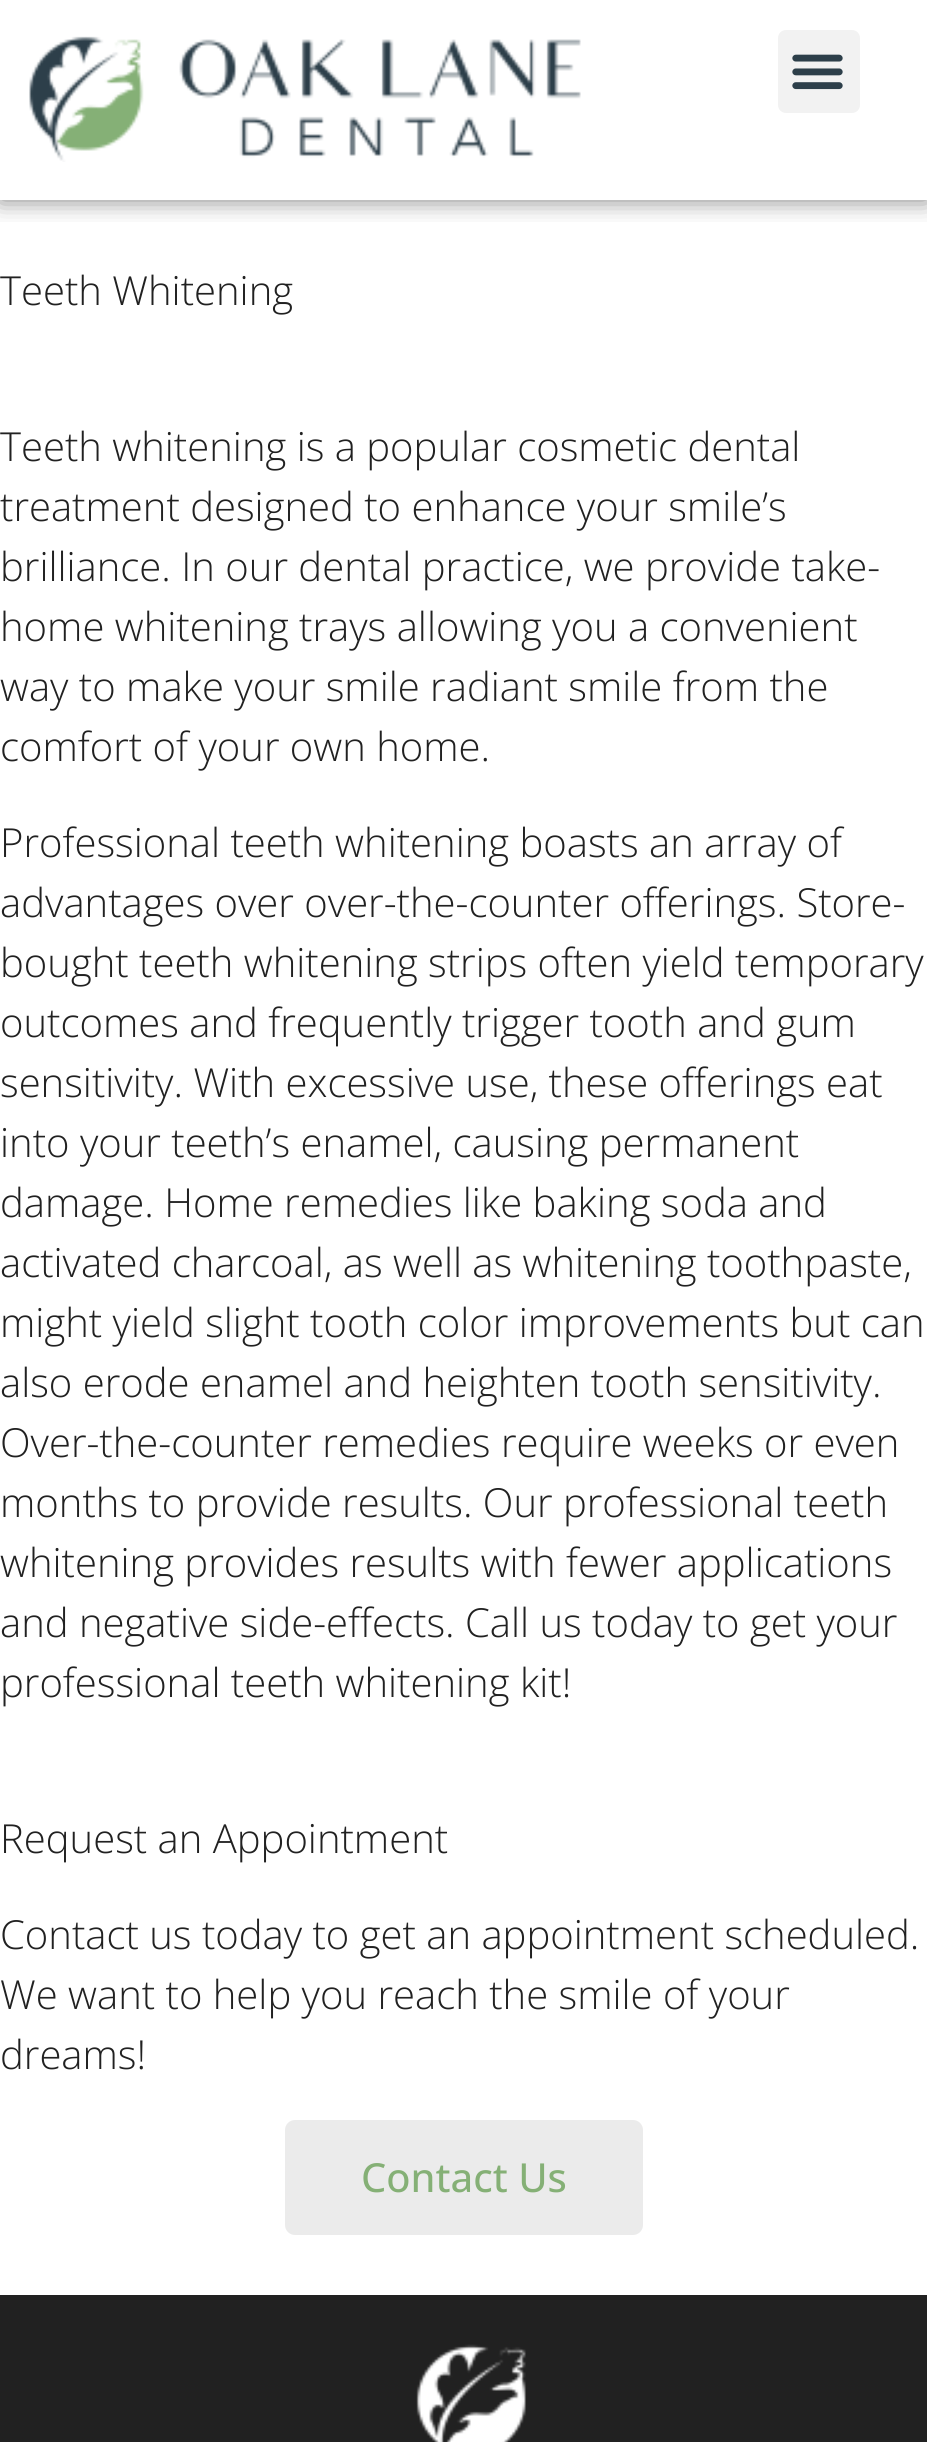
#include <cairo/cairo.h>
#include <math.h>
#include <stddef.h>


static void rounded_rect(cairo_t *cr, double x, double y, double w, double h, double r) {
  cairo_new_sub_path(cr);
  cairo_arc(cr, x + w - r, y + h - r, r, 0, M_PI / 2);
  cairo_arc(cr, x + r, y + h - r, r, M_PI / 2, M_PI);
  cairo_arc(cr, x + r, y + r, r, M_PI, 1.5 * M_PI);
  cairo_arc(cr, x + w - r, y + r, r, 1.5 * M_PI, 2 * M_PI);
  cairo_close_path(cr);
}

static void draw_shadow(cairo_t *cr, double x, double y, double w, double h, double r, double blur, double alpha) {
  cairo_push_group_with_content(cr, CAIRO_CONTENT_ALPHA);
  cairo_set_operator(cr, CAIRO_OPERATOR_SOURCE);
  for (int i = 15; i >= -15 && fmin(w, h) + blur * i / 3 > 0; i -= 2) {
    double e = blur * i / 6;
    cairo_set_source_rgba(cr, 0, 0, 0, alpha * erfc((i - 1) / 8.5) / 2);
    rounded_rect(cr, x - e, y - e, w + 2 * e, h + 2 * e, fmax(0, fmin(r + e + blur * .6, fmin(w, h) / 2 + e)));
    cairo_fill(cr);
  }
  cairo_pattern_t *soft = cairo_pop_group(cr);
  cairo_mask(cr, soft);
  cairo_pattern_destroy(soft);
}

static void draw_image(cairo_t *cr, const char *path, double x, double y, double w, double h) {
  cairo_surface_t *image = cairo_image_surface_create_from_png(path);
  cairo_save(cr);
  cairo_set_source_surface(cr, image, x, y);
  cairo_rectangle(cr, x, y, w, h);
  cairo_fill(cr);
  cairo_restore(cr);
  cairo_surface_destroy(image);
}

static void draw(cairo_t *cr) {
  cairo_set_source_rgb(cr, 1, 1, 1);
  cairo_paint(cr);
  cairo_save(cr);
  cairo_rectangle(cr, 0, 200, 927, 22);
  cairo_clip(cr);
  cairo_set_source_rgb(cr, 0, 0, 0);
  draw_shadow(cr, 0, 0, 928, 200, 0, 12.5, 0.5);
  cairo_restore(cr);
  draw_image(cr, "images/1.png", 29, 36, 552, 126);
  cairo_set_source_rgb(cr, 242 / 255.0, 242 / 255.0, 242 / 255.0);
  rounded_rect(cr, 778, 30, 82, 83, 8);
  cairo_fill(cr);
  draw_image(cr, "images/2.png", 792, 54, 51, 36);
  cairo_set_source_rgb(cr, 235 / 255.0, 235 / 255.0, 235 / 255.0);
  rounded_rect(cr, 285, 2120, 358, 115, 10);
  cairo_fill(cr);
  cairo_set_source_rgb(cr, 33 / 255.0, 33 / 255.0, 33 / 255.0);
  cairo_rectangle(cr, 0, 2295, 927, 147);
  cairo_fill(cr);
  draw_image(cr, "images/3.png", 416, 2344, 110, 98);
  cairo_select_font_face(cr, "Open Sans Light", CAIRO_FONT_SLANT_NORMAL, CAIRO_FONT_WEIGHT_NORMAL);
  cairo_set_font_size(cr, 40);
  cairo_move_to(cr, 0, 305);
  cairo_show_text(cr, "Teeth Whitening");
  cairo_move_to(cr, 0, 461);
  cairo_show_text(cr, "Teeth whitening is a popular cosmetic dental");
  cairo_move_to(cr, 0, 521);
  cairo_show_text(cr, "treatment designed to enhance your smile’s");
  cairo_move_to(cr, 0, 581);
  cairo_show_text(cr, "brilliance. In our dental practice, we provide take-");
  cairo_move_to(cr, 0, 641);
  cairo_show_text(cr, "home whitening trays allowing you a convenient");
  cairo_move_to(cr, 0, 701);
  cairo_show_text(cr, "way to make your smile radiant smile from the");
  cairo_move_to(cr, 0, 761);
  cairo_show_text(cr, "comfort of your own home.");
  cairo_move_to(cr, 0, 857);
  cairo_show_text(cr, "Professional teeth whitening boasts an array of");
  cairo_move_to(cr, 0, 917);
  cairo_show_text(cr, "advantages over over-the-counter offerings. Store-");
  cairo_move_to(cr, 0, 977);
  cairo_show_text(cr, "bought teeth whitening strips often yield temporary");
  cairo_move_to(cr, 0, 1037);
  cairo_show_text(cr, "outcomes and frequently trigger tooth and gum");
  cairo_move_to(cr, 0, 1097);
  cairo_show_text(cr, "sensitivity. With excessive use, these offerings eat");
  cairo_move_to(cr, 0, 1157);
  cairo_show_text(cr, "into your teeth’s enamel, causing permanent");
  cairo_move_to(cr, 0, 1217);
  cairo_show_text(cr, "damage. Home remedies like baking soda and");
  cairo_move_to(cr, 0, 1277);
  cairo_show_text(cr, "activated charcoal, as well as whitening toothpaste,");
  cairo_move_to(cr, 0, 1337);
  cairo_show_text(cr, "might yield slight tooth color improvements but can");
  cairo_move_to(cr, 0, 1397);
  cairo_show_text(cr, "also erode enamel and heighten tooth sensitivity.");
  cairo_move_to(cr, 0, 1457);
  cairo_show_text(cr, "Over-the-counter remedies require weeks or even");
  cairo_move_to(cr, 0, 1517);
  cairo_show_text(cr, "months to provide results. Our professional teeth");
  cairo_move_to(cr, 0, 1577);
  cairo_show_text(cr, "whitening provides results with fewer applications");
  cairo_move_to(cr, 0, 1637);
  cairo_show_text(cr, "and negative side-effects. Call us today to get your");
  cairo_move_to(cr, 0, 1697);
  cairo_show_text(cr, "professional teeth whitening kit!");
  cairo_move_to(cr, 0, 1853);
  cairo_show_text(cr, "Request an Appointment");
  cairo_move_to(cr, 0, 1949);
  cairo_show_text(cr, "Contact us today to get an appointment scheduled.");
  cairo_move_to(cr, 0, 2009);
  cairo_show_text(cr, "We want to help you reach the smile of your");
  cairo_move_to(cr, 0, 2069);
  cairo_show_text(cr, "dreams!");
  cairo_select_font_face(cr, "Open Sans Medium", CAIRO_FONT_SLANT_NORMAL, CAIRO_FONT_WEIGHT_NORMAL);
  cairo_set_source_rgb(cr, 133 / 255.0, 176 / 255.0, 118 / 255.0);
  cairo_move_to(cr, 361, 2192);
  cairo_show_text(cr, "Contact Us");
}

int main(void) {
  cairo_surface_t *surface = cairo_image_surface_create(CAIRO_FORMAT_RGB24, 927, 2442);
  cairo_t *cr = cairo_create(surface);
  cairo_font_options_t *options = cairo_font_options_create();
  cairo_font_options_set_hint_metrics(options, CAIRO_HINT_METRICS_OFF);
  cairo_font_options_set_hint_style(options, CAIRO_HINT_STYLE_NONE);
  cairo_set_font_options(cr, options);
  cairo_set_miter_limit(cr, 4);
  draw(cr);
  cairo_surface_write_to_png(surface, "out.png");
  cairo_font_options_destroy(options);
  cairo_destroy(cr);
  cairo_surface_destroy(surface);
  return 0;
}
